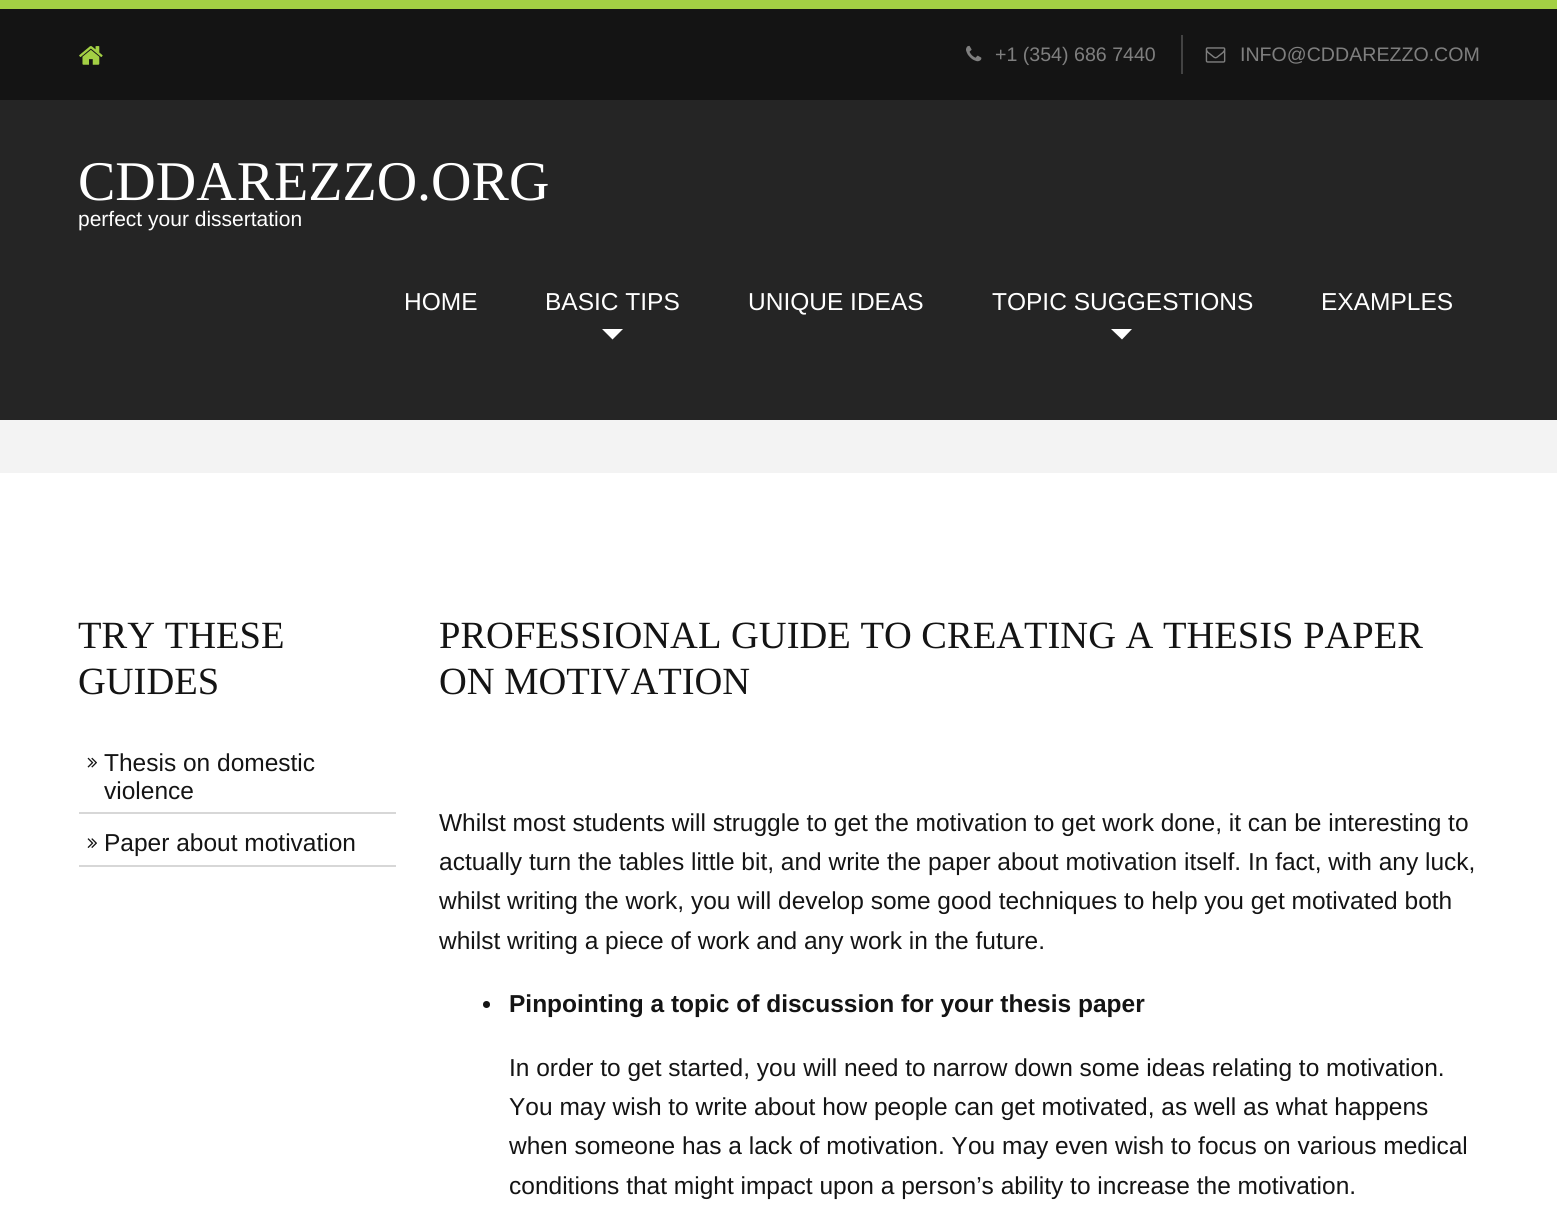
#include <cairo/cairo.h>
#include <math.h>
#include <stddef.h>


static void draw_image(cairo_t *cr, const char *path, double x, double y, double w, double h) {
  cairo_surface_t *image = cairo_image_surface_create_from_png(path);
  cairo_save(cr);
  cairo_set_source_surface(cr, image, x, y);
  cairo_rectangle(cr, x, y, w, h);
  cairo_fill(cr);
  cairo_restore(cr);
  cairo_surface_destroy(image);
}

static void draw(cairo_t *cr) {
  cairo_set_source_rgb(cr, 20 / 255.0, 20 / 255.0, 20 / 255.0);
  cairo_paint(cr);
  cairo_set_source_rgb(cr, 163 / 255.0, 208 / 255.0, 68 / 255.0);
  cairo_rectangle(cr, 0, 0, 1557, 9);
  cairo_fill(cr);
  draw_image(cr, "images/1.png", 79, 46, 24, 19);
  cairo_set_source_rgb(cr, 67 / 255.0, 67 / 255.0, 67 / 255.0);
  cairo_rectangle(cr, 1181, 35, 2, 39);
  cairo_fill(cr);
  draw_image(cr, "images/2.png", 966, 45, 16, 17);
  draw_image(cr, "images/3.png", 1205, 47, 21, 16);
  cairo_set_source_rgb(cr, 37 / 255.0, 37 / 255.0, 37 / 255.0);
  cairo_rectangle(cr, 0, 100, 1557, 320);
  cairo_fill(cr);
  cairo_set_source_rgb(cr, 1, 1, 1);
  cairo_new_path(cr);
  cairo_move_to(cr, 602, 329);
  cairo_line_to(cr, 623, 329);
  cairo_line_to(cr, 612.5, 339.5);
  cairo_close_path(cr);
  cairo_fill(cr);
  cairo_new_path(cr);
  cairo_move_to(cr, 1111, 329);
  cairo_line_to(cr, 1132, 329);
  cairo_line_to(cr, 1122, 339.5);
  cairo_close_path(cr);
  cairo_fill(cr);
  cairo_set_source_rgb(cr, 243 / 255.0, 243 / 255.0, 243 / 255.0);
  cairo_rectangle(cr, 0, 420, 1557, 53);
  cairo_fill(cr);
  cairo_set_source_rgb(cr, 1, 1, 1);
  cairo_rectangle(cr, 0, 473, 1557, 755);
  cairo_fill(cr);
  cairo_set_source_rgb(cr, 215 / 255.0, 215 / 255.0, 215 / 255.0);
  cairo_rectangle(cr, 79, 812, 317, 2);
  cairo_fill(cr);
  draw_image(cr, "images/4.png", 87, 757, 10, 11);
  cairo_rectangle(cr, 79, 865, 317, 2);
  cairo_fill(cr);
  draw_image(cr, "images/5.png", 87, 838, 10, 10);
  cairo_set_source_rgb(cr, 20 / 255.0, 20 / 255.0, 20 / 255.0);
  cairo_arc(cr, 486.5, 1004.5, 3.5, 0, 2 * M_PI);
  cairo_fill(cr);
  cairo_select_font_face(cr, "Liberation Sans", CAIRO_FONT_SLANT_NORMAL, CAIRO_FONT_WEIGHT_NORMAL);
  cairo_set_font_size(cr, 19.6);
  cairo_set_source_rgb(cr, 127 / 255.0, 127 / 255.0, 127 / 255.0);
  cairo_move_to(cr, 995, 61);
  cairo_show_text(cr, "+1 (354) 686 7440");
  cairo_move_to(cr, 1240, 61);
  cairo_show_text(cr, "INFO@CDDAREZZO.COM");
  cairo_select_font_face(cr, "Liberation Serif", CAIRO_FONT_SLANT_NORMAL, CAIRO_FONT_WEIGHT_NORMAL);
  cairo_set_font_size(cr, 56);
  cairo_set_source_rgb(cr, 1, 1, 1);
  cairo_move_to(cr, 78, 200);
  cairo_show_text(cr, "CDDAREZZO.ORG");
  cairo_select_font_face(cr, "Liberation Sans", CAIRO_FONT_SLANT_NORMAL, CAIRO_FONT_WEIGHT_NORMAL);
  cairo_set_font_size(cr, 21);
  cairo_move_to(cr, 78, 226);
  cairo_show_text(cr, "perfect your dissertation");
  cairo_set_font_size(cr, 24.5);
  cairo_move_to(cr, 404, 310);
  cairo_show_text(cr, "HOME");
  cairo_move_to(cr, 545, 310);
  cairo_show_text(cr, "BASIC TIPS");
  cairo_move_to(cr, 748, 310);
  cairo_show_text(cr, "UNIQUE IDEAS");
  cairo_move_to(cr, 992, 310);
  cairo_show_text(cr, "TOPIC SUGGESTIONS");
  cairo_move_to(cr, 1321, 310);
  cairo_show_text(cr, "EXAMPLES");
  cairo_select_font_face(cr, "Liberation Serif", CAIRO_FONT_SLANT_NORMAL, CAIRO_FONT_WEIGHT_NORMAL);
  cairo_set_font_size(cr, 38.5);
  cairo_set_source_rgb(cr, 20 / 255.0, 20 / 255.0, 20 / 255.0);
  cairo_move_to(cr, 78, 648);
  cairo_show_text(cr, "TRY THESE");
  cairo_move_to(cr, 78, 694);
  cairo_show_text(cr, "GUIDES");
  cairo_select_font_face(cr, "Liberation Sans", CAIRO_FONT_SLANT_NORMAL, CAIRO_FONT_WEIGHT_NORMAL);
  cairo_set_font_size(cr, 24.5);
  cairo_move_to(cr, 104, 771);
  cairo_show_text(cr, "Thesis on domestic");
  cairo_move_to(cr, 104, 799);
  cairo_show_text(cr, "violence");
  cairo_move_to(cr, 104, 851);
  cairo_show_text(cr, "Paper about motivation");
  cairo_select_font_face(cr, "Liberation Serif", CAIRO_FONT_SLANT_NORMAL, CAIRO_FONT_WEIGHT_NORMAL);
  cairo_set_font_size(cr, 38.5);
  cairo_move_to(cr, 439, 648);
  cairo_show_text(cr, "PROFESSIONAL GUIDE TO CREATING A THESIS PAPER");
  cairo_move_to(cr, 439, 694);
  cairo_show_text(cr, "ON MOTIVATION");
  cairo_select_font_face(cr, "Liberation Sans", CAIRO_FONT_SLANT_NORMAL, CAIRO_FONT_WEIGHT_NORMAL);
  cairo_set_font_size(cr, 24.5);
  cairo_move_to(cr, 439, 831);
  cairo_show_text(cr, "Whilst most students will struggle to get the motivation to get work done, it can be interesting to");
  cairo_move_to(cr, 439, 870);
  cairo_show_text(cr, "actually turn the tables little bit, and write the paper about motivation itself. In fact, with any luck,");
  cairo_move_to(cr, 439, 909);
  cairo_show_text(cr, "whilst writing the work, you will develop some good techniques to help you get motivated both");
  cairo_move_to(cr, 439, 949);
  cairo_show_text(cr, "whilst writing a piece of work and any work in the future.");
  cairo_select_font_face(cr, "Liberation Sans", CAIRO_FONT_SLANT_NORMAL, CAIRO_FONT_WEIGHT_BOLD);
  cairo_move_to(cr, 509, 1012);
  cairo_show_text(cr, "Pinpointing a topic of discussion for your thesis paper");
  cairo_select_font_face(cr, "Liberation Sans", CAIRO_FONT_SLANT_NORMAL, CAIRO_FONT_WEIGHT_NORMAL);
  cairo_move_to(cr, 509, 1076);
  cairo_show_text(cr, "In order to get started, you will need to narrow down some ideas relating to motivation.");
  cairo_move_to(cr, 509, 1115);
  cairo_show_text(cr, "You may wish to write about how people can get motivated, as well as what happens");
  cairo_move_to(cr, 509, 1154);
  cairo_show_text(cr, "when someone has a lack of motivation. You may even wish to focus on various medical");
  cairo_move_to(cr, 509, 1194);
  cairo_show_text(cr, "conditions that might impact upon a person’s ability to increase the motivation.");
}

int main(void) {
  cairo_surface_t *surface = cairo_image_surface_create(CAIRO_FORMAT_RGB24, 1557, 1228);
  cairo_t *cr = cairo_create(surface);
  cairo_font_options_t *options = cairo_font_options_create();
  cairo_font_options_set_hint_metrics(options, CAIRO_HINT_METRICS_OFF);
  cairo_font_options_set_hint_style(options, CAIRO_HINT_STYLE_NONE);
  cairo_set_font_options(cr, options);
  cairo_set_miter_limit(cr, 4);
  draw(cr);
  cairo_surface_write_to_png(surface, "out.png");
  cairo_font_options_destroy(options);
  cairo_destroy(cr);
  cairo_surface_destroy(surface);
  return 0;
}
